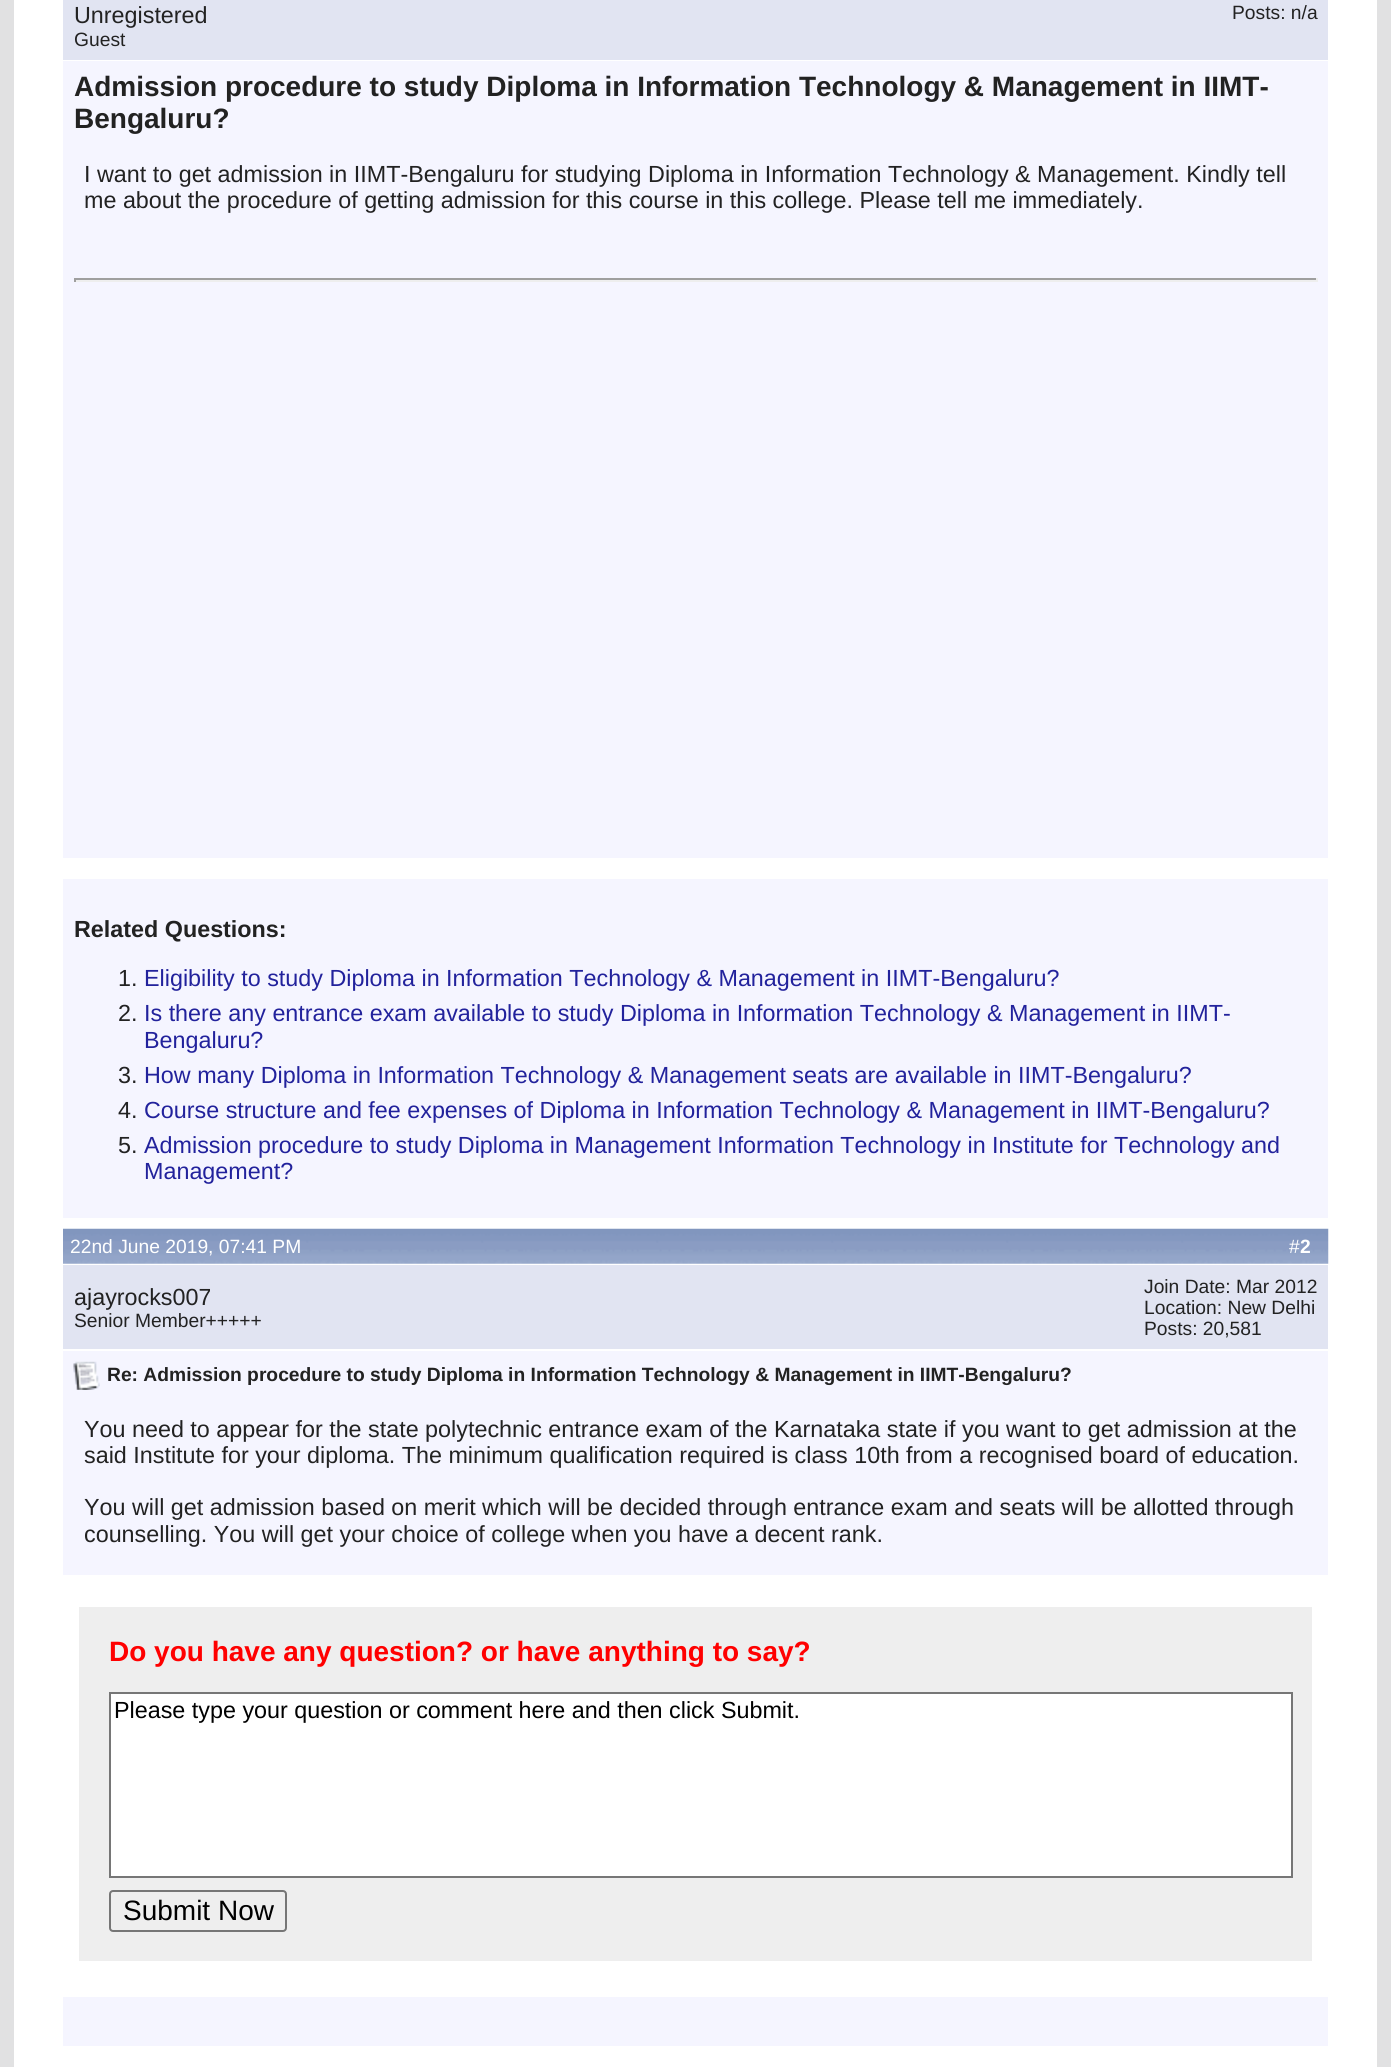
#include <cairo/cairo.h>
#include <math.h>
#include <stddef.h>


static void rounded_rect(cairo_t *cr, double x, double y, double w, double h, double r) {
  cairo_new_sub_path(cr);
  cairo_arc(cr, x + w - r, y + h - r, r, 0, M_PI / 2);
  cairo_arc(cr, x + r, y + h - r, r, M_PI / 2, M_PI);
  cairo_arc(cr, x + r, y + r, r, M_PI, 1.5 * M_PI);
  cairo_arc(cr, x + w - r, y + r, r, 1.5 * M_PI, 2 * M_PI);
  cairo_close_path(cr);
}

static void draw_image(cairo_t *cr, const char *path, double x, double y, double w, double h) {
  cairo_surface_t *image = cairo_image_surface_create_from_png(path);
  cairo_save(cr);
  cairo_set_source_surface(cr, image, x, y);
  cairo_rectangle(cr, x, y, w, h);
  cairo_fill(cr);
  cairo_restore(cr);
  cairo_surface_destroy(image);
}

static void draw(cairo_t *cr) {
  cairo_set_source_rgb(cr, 225 / 255.0, 225 / 255.0, 226 / 255.0);
  cairo_paint(cr);
  cairo_set_source_rgb(cr, 1, 1, 1);
  cairo_rectangle(cr, 14, 0, 1363, 2067);
  cairo_fill(cr);
  cairo_set_source_rgb(cr, 225 / 255.0, 228 / 255.0, 242 / 255.0);
  cairo_rectangle(cr, 63, 0, 1265, 60);
  cairo_fill(cr);
  cairo_set_source_rgb(cr, 245 / 255.0, 245 / 255.0, 1);
  cairo_rectangle(cr, 63, 61, 1265, 797);
  cairo_fill(cr);
  cairo_set_source_rgb(cr, 159 / 255.0, 159 / 255.0, 159 / 255.0);
  cairo_rectangle(cr, 74, 278, 1244, 2);
  cairo_fill(cr);
  cairo_set_source_rgb(cr, 238 / 255.0, 238 / 255.0, 238 / 255.0);
  cairo_rectangle(cr, 1316, 278, 2, 4);
  cairo_fill(cr);
  cairo_rectangle(cr, 74, 280, 1244, 2);
  cairo_fill(cr);
  cairo_set_source_rgb(cr, 159 / 255.0, 159 / 255.0, 159 / 255.0);
  cairo_rectangle(cr, 74, 278, 2, 4);
  cairo_fill(cr);
  cairo_set_source_rgb(cr, 245 / 255.0, 245 / 255.0, 1);
  cairo_rectangle(cr, 63, 879, 1265, 339);
  cairo_fill(cr);
  draw_image(cr, "images/1.png", 63, 1228, 1266, 36);
  cairo_set_source_rgb(cr, 225 / 255.0, 228 / 255.0, 242 / 255.0);
  cairo_rectangle(cr, 63, 1265, 1265, 84);
  cairo_fill(cr);
  cairo_set_source_rgb(cr, 245 / 255.0, 245 / 255.0, 1);
  cairo_rectangle(cr, 63, 1351, 1265, 224);
  cairo_fill(cr);
  draw_image(cr, "images/2.png", 73, 1361, 27, 29);
  cairo_set_source_rgb(cr, 238 / 255.0, 238 / 255.0, 238 / 255.0);
  cairo_rectangle(cr, 79, 1607, 1233, 354);
  cairo_fill(cr);
  cairo_set_source_rgb(cr, 1, 1, 1);
  cairo_rectangle(cr, 110, 1693, 1182, 184);
  cairo_fill_preserve(cr);
  cairo_set_source_rgb(cr, 118 / 255.0, 118 / 255.0, 118 / 255.0);
  cairo_stroke(cr);
  rounded_rect(cr, 110, 1891, 176, 40, 3);
  cairo_stroke(cr);
  cairo_set_source_rgb(cr, 245 / 255.0, 245 / 255.0, 1);
  cairo_rectangle(cr, 63, 1997, 1265, 49);
  cairo_fill(cr);
  cairo_select_font_face(cr, "Liberation Sans", CAIRO_FONT_SLANT_NORMAL, CAIRO_FONT_WEIGHT_NORMAL);
  cairo_set_font_size(cr, 23.33);
  cairo_set_source_rgb(cr, 34 / 255.0, 34 / 255.0, 34 / 255.0);
  cairo_move_to(cr, 74, 23);
  cairo_show_text(cr, "Unregistered");
  cairo_set_font_size(cr, 19.25);
  cairo_move_to(cr, 74, 46);
  cairo_show_text(cr, "Guest");
  cairo_move_to(cr, 1232, 19);
  cairo_show_text(cr, "Posts: n/a");
  cairo_select_font_face(cr, "Liberation Sans", CAIRO_FONT_SLANT_NORMAL, CAIRO_FONT_WEIGHT_BOLD);
  cairo_set_font_size(cr, 28);
  cairo_move_to(cr, 74, 96);
  cairo_show_text(cr, "Admission procedure to study Diploma in Information Technology & Management in IIMT-");
  cairo_move_to(cr, 74, 128);
  cairo_show_text(cr, "Bengaluru?");
  cairo_select_font_face(cr, "Liberation Sans", CAIRO_FONT_SLANT_NORMAL, CAIRO_FONT_WEIGHT_NORMAL);
  cairo_set_font_size(cr, 23.33);
  cairo_move_to(cr, 84, 182);
  cairo_show_text(cr, "I want to get admission in IIMT-Bengaluru for studying Diploma in Information Technology & Management. Kindly tell");
  cairo_move_to(cr, 84, 208);
  cairo_show_text(cr, "me about the procedure of getting admission for this course in this college. Please tell me immediately.");
  cairo_select_font_face(cr, "Liberation Sans", CAIRO_FONT_SLANT_NORMAL, CAIRO_FONT_WEIGHT_BOLD);
  cairo_move_to(cr, 74, 937);
  cairo_show_text(cr, "Related Questions:");
  cairo_select_font_face(cr, "Liberation Sans", CAIRO_FONT_SLANT_NORMAL, CAIRO_FONT_WEIGHT_NORMAL);
  cairo_move_to(cr, 118, 986);
  cairo_show_text(cr, "1.");
  cairo_set_source_rgb(cr, 34 / 255.0, 34 / 255.0, 156 / 255.0);
  cairo_move_to(cr, 144, 986);
  cairo_show_text(cr, "Eligibility to study Diploma in Information Technology & Management in IIMT-Bengaluru?");
  cairo_set_source_rgb(cr, 34 / 255.0, 34 / 255.0, 34 / 255.0);
  cairo_move_to(cr, 118, 1021);
  cairo_show_text(cr, "2.");
  cairo_set_source_rgb(cr, 34 / 255.0, 34 / 255.0, 156 / 255.0);
  cairo_move_to(cr, 144, 1021);
  cairo_show_text(cr, "Is there any entrance exam available to study Diploma in Information Technology & Management in IIMT-");
  cairo_move_to(cr, 144, 1048);
  cairo_show_text(cr, "Bengaluru?");
  cairo_set_source_rgb(cr, 34 / 255.0, 34 / 255.0, 34 / 255.0);
  cairo_move_to(cr, 118, 1083);
  cairo_show_text(cr, "3.");
  cairo_set_source_rgb(cr, 34 / 255.0, 34 / 255.0, 156 / 255.0);
  cairo_move_to(cr, 144, 1083);
  cairo_show_text(cr, "How many Diploma in Information Technology & Management seats are available in IIMT-Bengaluru?");
  cairo_set_source_rgb(cr, 34 / 255.0, 34 / 255.0, 34 / 255.0);
  cairo_move_to(cr, 118, 1118);
  cairo_show_text(cr, "4.");
  cairo_set_source_rgb(cr, 34 / 255.0, 34 / 255.0, 156 / 255.0);
  cairo_move_to(cr, 144, 1118);
  cairo_show_text(cr, "Course structure and fee expenses of Diploma in Information Technology & Management in IIMT-Bengaluru?");
  cairo_set_source_rgb(cr, 34 / 255.0, 34 / 255.0, 34 / 255.0);
  cairo_move_to(cr, 118, 1153);
  cairo_show_text(cr, "5.");
  cairo_set_source_rgb(cr, 34 / 255.0, 34 / 255.0, 156 / 255.0);
  cairo_move_to(cr, 144, 1153);
  cairo_show_text(cr, "Admission procedure to study Diploma in Management Information Technology in Institute for Technology and");
  cairo_move_to(cr, 144, 1179);
  cairo_show_text(cr, "Management?");
  cairo_set_font_size(cr, 19.25);
  cairo_set_source_rgb(cr, 1, 1, 1);
  cairo_move_to(cr, 70, 1253);
  cairo_show_text(cr, "22nd June 2019, 07:41 PM");
  cairo_move_to(cr, 1289, 1253);
  cairo_show_text(cr, "#");
  cairo_select_font_face(cr, "Liberation Sans", CAIRO_FONT_SLANT_NORMAL, CAIRO_FONT_WEIGHT_BOLD);
  cairo_move_to(cr, 1300, 1253);
  cairo_show_text(cr, "2");
  cairo_select_font_face(cr, "Liberation Sans", CAIRO_FONT_SLANT_NORMAL, CAIRO_FONT_WEIGHT_NORMAL);
  cairo_set_font_size(cr, 23.33);
  cairo_set_source_rgb(cr, 34 / 255.0, 34 / 255.0, 34 / 255.0);
  cairo_move_to(cr, 74, 1305);
  cairo_show_text(cr, "ajayrocks007");
  cairo_set_font_size(cr, 19.25);
  cairo_move_to(cr, 74, 1327);
  cairo_show_text(cr, "Senior Member+++++");
  cairo_move_to(cr, 1144, 1293);
  cairo_show_text(cr, "Join Date: Mar 2012");
  cairo_move_to(cr, 1144, 1314);
  cairo_show_text(cr, "Location: New Delhi");
  cairo_move_to(cr, 1144, 1335);
  cairo_show_text(cr, "Posts: 20,581");
  cairo_select_font_face(cr, "Liberation Sans", CAIRO_FONT_SLANT_NORMAL, CAIRO_FONT_WEIGHT_BOLD);
  cairo_move_to(cr, 107, 1381);
  cairo_show_text(cr, "Re: Admission procedure to study Diploma in Information Technology & Management in IIMT-Bengaluru?");
  cairo_select_font_face(cr, "Liberation Sans", CAIRO_FONT_SLANT_NORMAL, CAIRO_FONT_WEIGHT_NORMAL);
  cairo_set_font_size(cr, 23.33);
  cairo_move_to(cr, 84, 1437);
  cairo_show_text(cr, "You need to appear for the state polytechnic entrance exam of the Karnataka state if you want to get admission at the");
  cairo_move_to(cr, 84, 1463);
  cairo_show_text(cr, "said Institute for your diploma. The minimum qualification required is class 10th from a recognised board of education.");
  cairo_move_to(cr, 84, 1515);
  cairo_show_text(cr, "You will get admission based on merit which will be decided through entrance exam and seats will be allotted through");
  cairo_move_to(cr, 84, 1542);
  cairo_show_text(cr, "counselling. You will get your choice of college when you have a decent rank.");
  cairo_select_font_face(cr, "Liberation Sans", CAIRO_FONT_SLANT_NORMAL, CAIRO_FONT_WEIGHT_BOLD);
  cairo_set_font_size(cr, 28);
  cairo_set_source_rgb(cr, 1, 0, 0);
  cairo_move_to(cr, 109, 1661);
  cairo_show_text(cr, "Do you have any question? or have anything to say?");
  cairo_select_font_face(cr, "Liberation Sans", CAIRO_FONT_SLANT_NORMAL, CAIRO_FONT_WEIGHT_NORMAL);
  cairo_set_font_size(cr, 23.33);
  cairo_set_source_rgb(cr, 0, 0, 0);
  cairo_move_to(cr, 114, 1718);
  cairo_show_text(cr, "Please type your question or comment here and then click Submit.");
  cairo_set_font_size(cr, 28);
  cairo_move_to(cr, 123, 1920);
  cairo_show_text(cr, "Submit Now");
}

int main(void) {
  cairo_surface_t *surface = cairo_image_surface_create(CAIRO_FORMAT_RGB24, 1391, 2067);
  cairo_t *cr = cairo_create(surface);
  cairo_font_options_t *options = cairo_font_options_create();
  cairo_font_options_set_hint_metrics(options, CAIRO_HINT_METRICS_OFF);
  cairo_font_options_set_hint_style(options, CAIRO_HINT_STYLE_NONE);
  cairo_set_font_options(cr, options);
  cairo_set_miter_limit(cr, 4);
  draw(cr);
  cairo_surface_write_to_png(surface, "out.png");
  cairo_font_options_destroy(options);
  cairo_destroy(cr);
  cairo_surface_destroy(surface);
  return 0;
}
